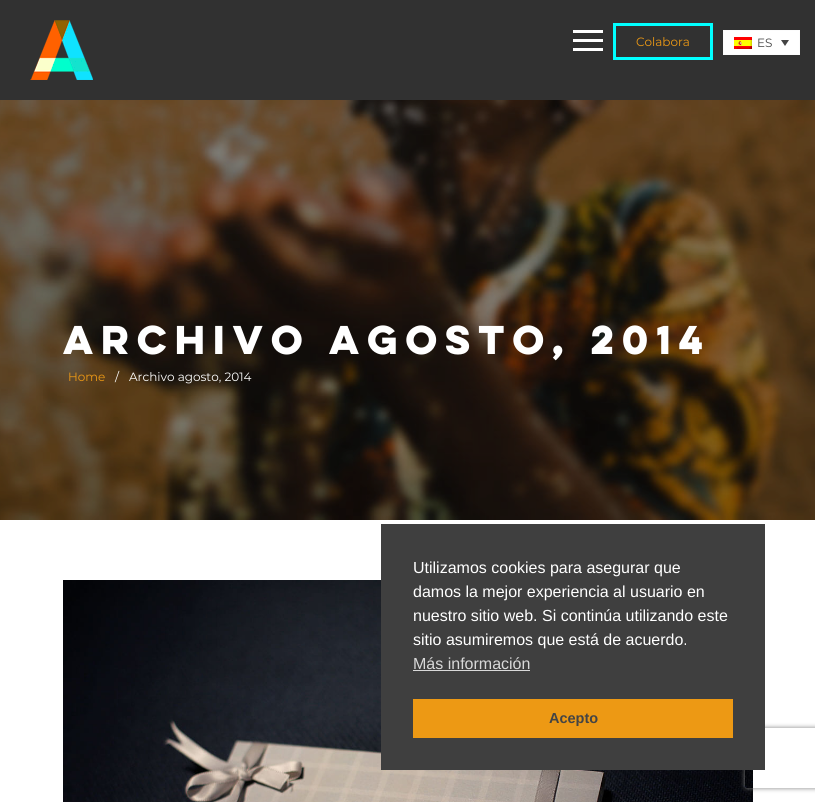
#include <cairo/cairo.h>
#include <math.h>
#include <stddef.h>


static void rounded_rect(cairo_t *cr, double x, double y, double w, double h, double r) {
  cairo_new_sub_path(cr);
  cairo_arc(cr, x + w - r, y + h - r, r, 0, M_PI / 2);
  cairo_arc(cr, x + r, y + h - r, r, M_PI / 2, M_PI);
  cairo_arc(cr, x + r, y + r, r, M_PI, 1.5 * M_PI);
  cairo_arc(cr, x + w - r, y + r, r, 1.5 * M_PI, 2 * M_PI);
  cairo_close_path(cr);
}

static void draw_shadow(cairo_t *cr, double x, double y, double w, double h, double r, double blur, double alpha) {
  cairo_push_group_with_content(cr, CAIRO_CONTENT_ALPHA);
  cairo_set_operator(cr, CAIRO_OPERATOR_SOURCE);
  for (int i = 15; i >= -15 && fmin(w, h) + blur * i / 3 > 0; i -= 2) {
    double e = blur * i / 6;
    cairo_set_source_rgba(cr, 0, 0, 0, alpha * erfc((i - 1) / 8.5) / 2);
    rounded_rect(cr, x - e, y - e, w + 2 * e, h + 2 * e, fmax(0, fmin(r + e + blur * .6, fmin(w, h) / 2 + e)));
    cairo_fill(cr);
  }
  cairo_pattern_t *soft = cairo_pop_group(cr);
  cairo_mask(cr, soft);
  cairo_pattern_destroy(soft);
}

static void draw_image(cairo_t *cr, const char *path, double x, double y, double w, double h) {
  cairo_surface_t *image = cairo_image_surface_create_from_png(path);
  cairo_save(cr);
  cairo_set_source_surface(cr, image, x, y);
  cairo_rectangle(cr, x, y, w, h);
  cairo_fill(cr);
  cairo_restore(cr);
  cairo_surface_destroy(image);
}

static void draw(cairo_t *cr) {
  cairo_set_source_rgb(cr, 1, 1, 1);
  cairo_paint(cr);
  cairo_set_source_rgb(cr, 49 / 255.0, 49 / 255.0, 49 / 255.0);
  cairo_rectangle(cr, 0, 0, 815, 100);
  cairo_fill(cr);
  draw_image(cr, "images/1.png", 30, 20, 63, 60);
  cairo_set_source_rgb(cr, 1, 1, 1);
  cairo_rectangle(cr, 573, 30, 30, 3);
  cairo_fill(cr);
  cairo_rectangle(cr, 573, 39, 30, 3);
  cairo_fill(cr);
  cairo_rectangle(cr, 573, 48, 30, 3);
  cairo_fill(cr);
  cairo_rectangle(cr, 614.5, 24.5, 97, 34);
  cairo_set_source_rgb(cr, 0, 1, 1);
  cairo_set_line_width(cr, 3);
  cairo_stroke(cr);
  cairo_set_source_rgb(cr, 1, 1, 1);
  cairo_rectangle(cr, 723.5, 30.5, 76, 24);
  cairo_fill_preserve(cr);
  cairo_set_source_rgb(cr, 252 / 255.0, 252 / 255.0, 252 / 255.0);
  cairo_set_line_width(cr, 1);
  cairo_stroke(cr);
  draw_image(cr, "images/2.png", 734, 37, 18, 12);
  cairo_set_source_rgb(cr, 68 / 255.0, 68 / 255.0, 68 / 255.0);
  cairo_new_path(cr);
  cairo_move_to(cr, 781, 40);
  cairo_line_to(cr, 789, 40);
  cairo_line_to(cr, 785, 46);
  cairo_close_path(cr);
  cairo_fill(cr);
  draw_image(cr, "images/3.png", 0, 100, 815, 420);
  draw_image(cr, "images/4.png", 63, 580, 690, 222);
  cairo_save(cr);
  cairo_set_fill_rule(cr, CAIRO_FILL_RULE_EVEN_ODD);
  cairo_new_path(cr);
  cairo_move_to(cr, 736, 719);
  cairo_line_to(cr, 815, 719);
  cairo_line_to(cr, 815, 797);
  cairo_line_to(cr, 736, 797);
  cairo_close_path(cr);
  cairo_move_to(cr, 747, 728);
  cairo_line_to(cr, 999, 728);
  cairo_curve_to(cr, 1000, 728, 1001, 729, 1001, 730);
  cairo_line_to(cr, 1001, 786);
  cairo_curve_to(cr, 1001, 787, 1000, 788, 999, 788);
  cairo_line_to(cr, 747, 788);
  cairo_curve_to(cr, 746, 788, 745, 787, 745, 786);
  cairo_line_to(cr, 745, 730);
  cairo_curve_to(cr, 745, 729, 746, 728, 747, 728);
  cairo_close_path(cr);
  cairo_clip(cr);
  cairo_set_source_rgb(cr, 128 / 255.0, 128 / 255.0, 128 / 255.0);
  draw_shadow(cr, 745, 728, 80, 60, 2, 2.5, 1);
  cairo_restore(cr);
  cairo_set_source_rgb(cr, 63 / 255.0, 63 / 255.0, 63 / 255.0);
  cairo_rectangle(cr, 381, 524, 384, 246);
  cairo_fill(cr);
  cairo_set_source_rgb(cr, 217 / 255.0, 217 / 255.0, 217 / 255.0);
  cairo_rectangle(cr, 413, 670, 117, 1);
  cairo_fill(cr);
  cairo_set_source_rgb(cr, 237 / 255.0, 153 / 255.0, 20 / 255.0);
  cairo_rectangle(cr, 413, 699, 320, 39);
  cairo_fill(cr);
  cairo_select_font_face(cr, "Montserrat", CAIRO_FONT_SLANT_NORMAL, CAIRO_FONT_WEIGHT_NORMAL);
  cairo_set_font_size(cr, 12);
  cairo_move_to(cr, 636, 46);
  cairo_show_text(cr, "Colabora");
  cairo_set_source_rgb(cr, 68 / 255.0, 68 / 255.0, 68 / 255.0);
  cairo_move_to(cr, 757, 47);
  cairo_show_text(cr, "ES");
  cairo_select_font_face(cr, "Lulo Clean", CAIRO_FONT_SLANT_NORMAL, CAIRO_FONT_WEIGHT_BOLD);
  cairo_set_font_size(cr, 36);
  cairo_set_source_rgb(cr, 1, 1, 1);
  cairo_move_to(cr, 63, 354);
  cairo_show_text(cr, "ARCHIVO AGOSTO, 2014");
  cairo_select_font_face(cr, "Montserrat", CAIRO_FONT_SLANT_NORMAL, CAIRO_FONT_WEIGHT_NORMAL);
  cairo_set_font_size(cr, 12);
  cairo_set_source_rgb(cr, 237 / 255.0, 153 / 255.0, 20 / 255.0);
  cairo_move_to(cr, 68, 381);
  cairo_show_text(cr, "Home");
  cairo_set_source_rgb(cr, 1, 1, 1);
  cairo_move_to(cr, 115, 381);
  cairo_show_text(cr, "/");
  cairo_move_to(cr, 129, 381);
  cairo_show_text(cr, "Archivo agosto, 2014");
  cairo_select_font_face(cr, "Liberation Sans", CAIRO_FONT_SLANT_NORMAL, CAIRO_FONT_WEIGHT_NORMAL);
  cairo_set_font_size(cr, 16);
  cairo_move_to(cr, 413, 573);
  cairo_show_text(cr, "Utilizamos cookies para asegurar que");
  cairo_move_to(cr, 413, 597);
  cairo_show_text(cr, "damos la mejor experiencia al usuario en");
  cairo_move_to(cr, 413, 621);
  cairo_show_text(cr, "nuestro sitio web. Si continúa utilizando este");
  cairo_move_to(cr, 413, 645);
  cairo_show_text(cr, "sitio asumiremos que está de acuerdo.");
  cairo_set_source_rgb(cr, 217 / 255.0, 217 / 255.0, 217 / 255.0);
  cairo_move_to(cr, 413, 669);
  cairo_show_text(cr, "Más información");
  cairo_select_font_face(cr, "Liberation Sans", CAIRO_FONT_SLANT_NORMAL, CAIRO_FONT_WEIGHT_BOLD);
  cairo_set_font_size(cr, 14.5);
  cairo_set_source_rgb(cr, 68 / 255.0, 68 / 255.0, 68 / 255.0);
  cairo_move_to(cr, 549, 723);
  cairo_show_text(cr, "Acepto");
}

int main(void) {
  cairo_surface_t *surface = cairo_image_surface_create(CAIRO_FORMAT_RGB24, 815, 802);
  cairo_t *cr = cairo_create(surface);
  cairo_font_options_t *options = cairo_font_options_create();
  cairo_font_options_set_hint_metrics(options, CAIRO_HINT_METRICS_OFF);
  cairo_font_options_set_hint_style(options, CAIRO_HINT_STYLE_NONE);
  cairo_set_font_options(cr, options);
  cairo_set_miter_limit(cr, 4);
  draw(cr);
  cairo_surface_write_to_png(surface, "out.png");
  cairo_font_options_destroy(options);
  cairo_destroy(cr);
  cairo_surface_destroy(surface);
  return 0;
}
